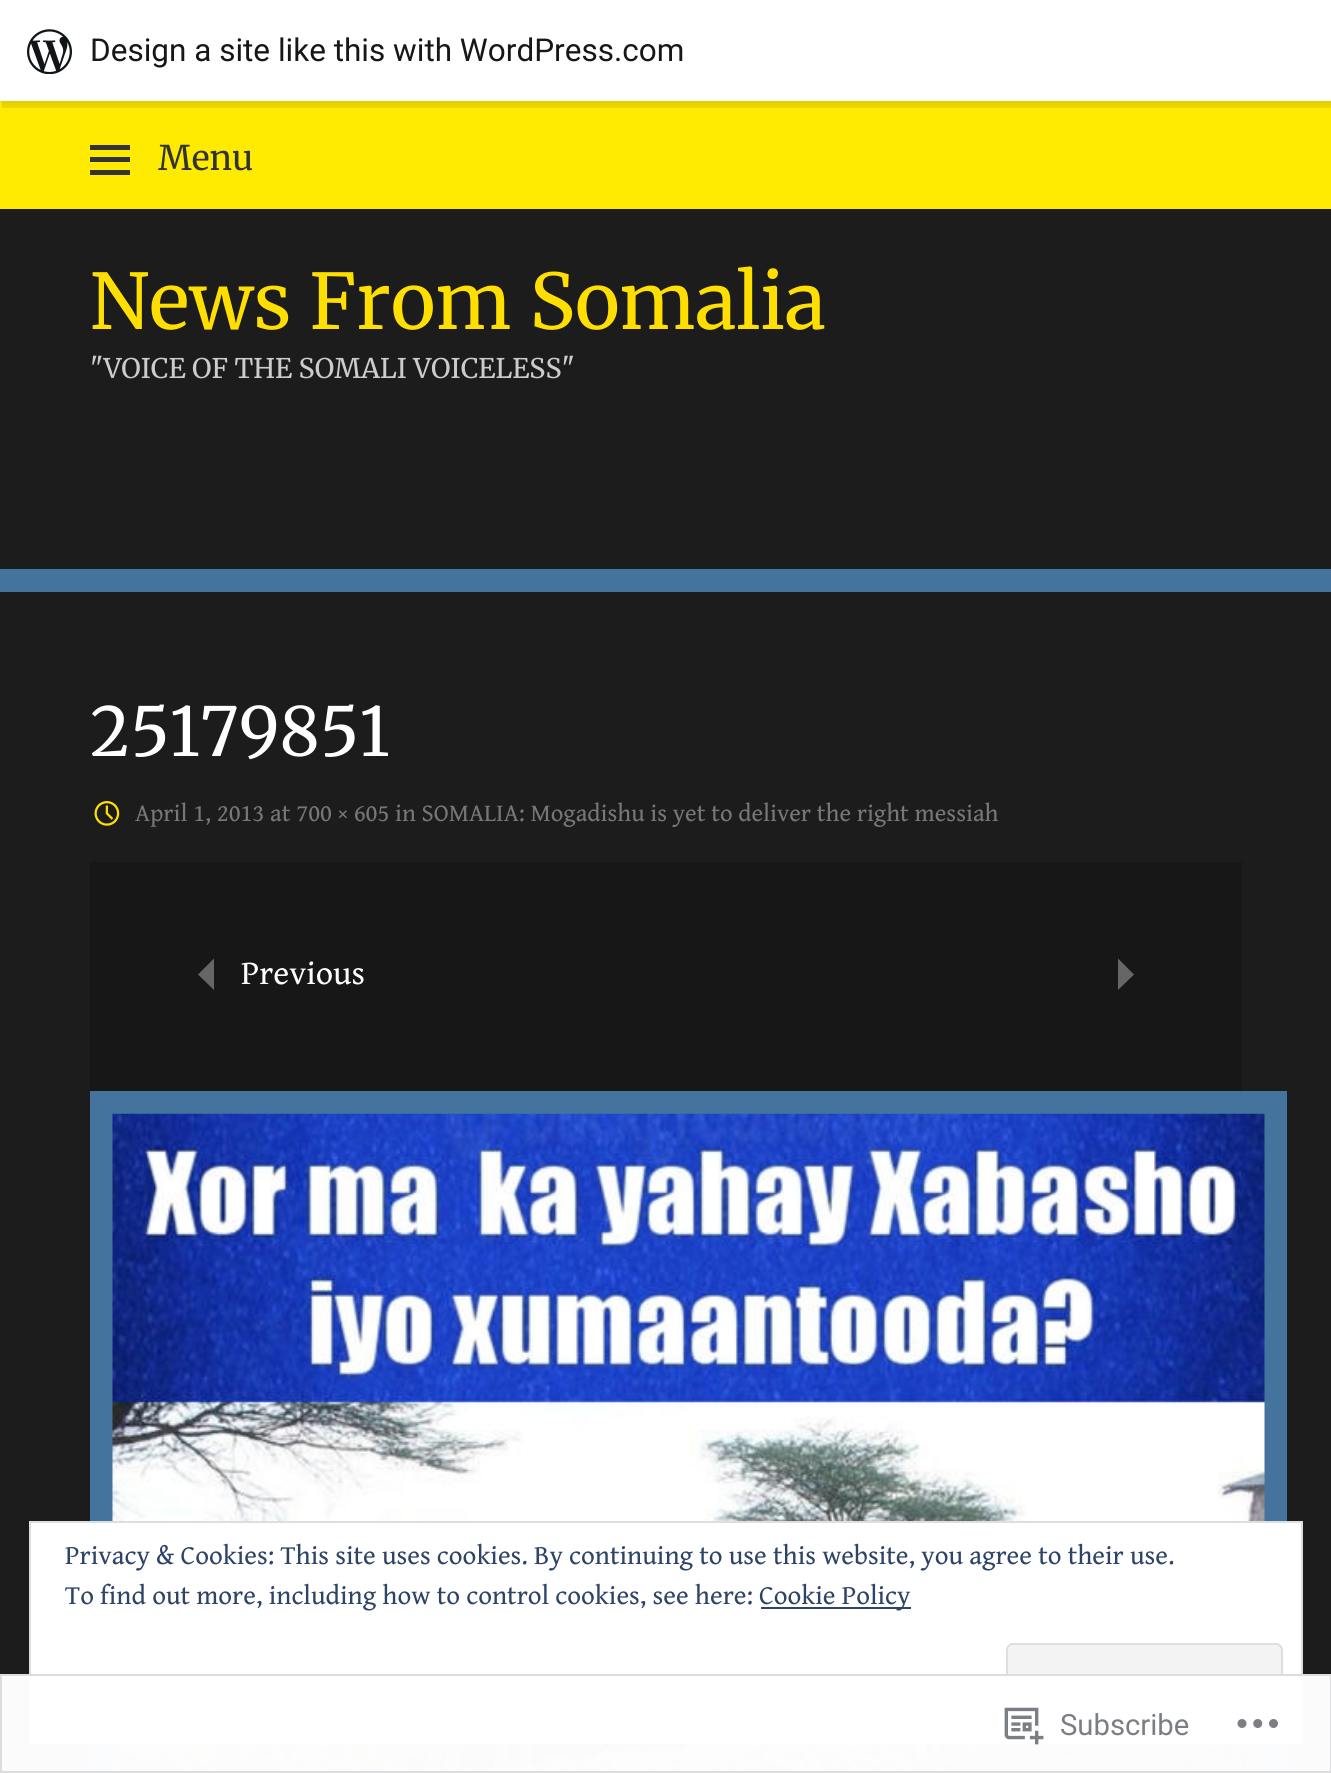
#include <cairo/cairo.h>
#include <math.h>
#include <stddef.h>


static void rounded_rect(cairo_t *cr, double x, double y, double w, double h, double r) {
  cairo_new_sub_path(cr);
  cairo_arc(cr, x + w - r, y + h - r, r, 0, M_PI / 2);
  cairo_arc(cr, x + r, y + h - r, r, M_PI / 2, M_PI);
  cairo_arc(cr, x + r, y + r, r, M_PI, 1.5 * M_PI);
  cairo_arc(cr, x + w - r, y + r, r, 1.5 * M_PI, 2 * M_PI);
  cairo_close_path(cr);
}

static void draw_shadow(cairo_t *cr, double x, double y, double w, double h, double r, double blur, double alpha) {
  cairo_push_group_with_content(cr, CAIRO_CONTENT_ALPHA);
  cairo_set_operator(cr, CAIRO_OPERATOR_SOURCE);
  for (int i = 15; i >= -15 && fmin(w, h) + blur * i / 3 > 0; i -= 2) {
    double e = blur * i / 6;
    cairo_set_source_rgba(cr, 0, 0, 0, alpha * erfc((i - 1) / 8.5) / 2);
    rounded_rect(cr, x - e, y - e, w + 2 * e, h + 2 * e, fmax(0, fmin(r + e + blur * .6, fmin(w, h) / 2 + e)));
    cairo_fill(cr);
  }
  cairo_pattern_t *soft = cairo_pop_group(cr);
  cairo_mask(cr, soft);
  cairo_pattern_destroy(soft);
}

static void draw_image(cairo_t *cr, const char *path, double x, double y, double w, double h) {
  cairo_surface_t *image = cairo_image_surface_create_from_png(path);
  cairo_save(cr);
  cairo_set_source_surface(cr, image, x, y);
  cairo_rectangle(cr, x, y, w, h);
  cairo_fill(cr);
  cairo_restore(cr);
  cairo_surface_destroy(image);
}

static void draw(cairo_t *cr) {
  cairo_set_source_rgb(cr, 68 / 255.0, 116 / 255.0, 157 / 255.0);
  cairo_paint(cr);
  cairo_set_source_rgb(cr, 1, 235 / 255.0, 1 / 255.0);
  cairo_rectangle(cr, 0, 101, 1331, 108);
  cairo_fill(cr);
  cairo_set_source_rgb(cr, 0, 0, 0);
  draw_shadow(cr, 0, 2, 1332, 102, 0, 2, 0.05);
  cairo_set_source_rgba(cr, 0, 0, 0, 0.08);
  cairo_new_path(cr);
  cairo_move_to(cr, 2, 101);
  cairo_line_to(cr, 2, 108);
  cairo_line_to(cr, 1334, 108);
  cairo_line_to(cr, 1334, 7);
  cairo_line_to(cr, 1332, 7);
  cairo_line_to(cr, 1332, 101);
  cairo_close_path(cr);
  cairo_fill(cr);
  cairo_set_source_rgb(cr, 1, 1, 1);
  cairo_rectangle(cr, 0, 0, 1331, 101);
  cairo_fill(cr);
  draw_image(cr, "images/1.png", 27, 29, 45, 45);
  cairo_set_source_rgb(cr, 51 / 255.0, 51 / 255.0, 51 / 255.0);
  cairo_new_path(cr);
  cairo_move_to(cr, 90, 175);
  cairo_line_to(cr, 90, 170);
  cairo_line_to(cr, 130, 170);
  cairo_line_to(cr, 130, 175);
  cairo_close_path(cr);
  cairo_move_to(cr, 90, 162);
  cairo_line_to(cr, 90, 157);
  cairo_line_to(cr, 130, 157);
  cairo_line_to(cr, 130, 162);
  cairo_close_path(cr);
  cairo_move_to(cr, 90, 150);
  cairo_line_to(cr, 90, 145);
  cairo_line_to(cr, 130, 145);
  cairo_line_to(cr, 130, 150);
  cairo_close_path(cr);
  cairo_fill(cr);
  cairo_set_source_rgb(cr, 28 / 255.0, 28 / 255.0, 28 / 255.0);
  cairo_rectangle(cr, 0, 209, 1331, 360);
  cairo_fill(cr);
  cairo_rectangle(cr, 0, 592, 1331, 1181);
  cairo_fill(cr);
  draw_image(cr, "images/2.png", 94, 801, 26, 25);
  cairo_set_source_rgb(cr, 23 / 255.0, 23 / 255.0, 23 / 255.0);
  cairo_rectangle(cr, 90, 862, 1152, 229);
  cairo_fill(cr);
  cairo_set_source_rgb(cr, 102 / 255.0, 102 / 255.0, 102 / 255.0);
  cairo_new_path(cr);
  cairo_move_to(cr, 198, 974.5);
  cairo_line_to(cr, 214, 958.5);
  cairo_line_to(cr, 214, 990);
  cairo_close_path(cr);
  cairo_fill(cr);
  cairo_new_path(cr);
  cairo_move_to(cr, 1118, 990);
  cairo_line_to(cr, 1134, 974.5);
  cairo_line_to(cr, 1118, 958.5);
  cairo_close_path(cr);
  cairo_fill(cr);
  cairo_rectangle(cr, 101.5, 1102.5, 1174, 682);
  cairo_set_source_rgb(cr, 68 / 255.0, 116 / 255.0, 157 / 255.0);
  cairo_set_line_width(cr, 23);
  cairo_stroke(cr);
  draw_image(cr, "images/3.png", 112, 1113, 1153, 660);
  cairo_set_source_rgb(cr, 1, 1, 1);
  cairo_rectangle(cr, 30, 1522, 1272, 221);
  cairo_fill_preserve(cr);
  cairo_set_source_rgb(cr, 222 / 255.0, 222 / 255.0, 222 / 255.0);
  cairo_set_line_width(cr, 2);
  cairo_stroke(cr);
  cairo_set_source_rgb(cr, 46 / 255.0, 68 / 255.0, 103 / 255.0);
  cairo_rectangle(cr, 761, 1607, 150, 2);
  cairo_fill(cr);
  cairo_set_source_rgb(cr, 243 / 255.0, 243 / 255.0, 243 / 255.0);
  rounded_rect(cr, 1007, 1644, 275, 79, 6);
  cairo_fill_preserve(cr);
  cairo_set_source_rgb(cr, 222 / 255.0, 222 / 255.0, 222 / 255.0);
  cairo_stroke(cr);
  cairo_set_source_rgba(cr, 1, 1, 1, 0.98);
  cairo_rectangle(cr, 0, 1674, 1331, 99);
  cairo_fill(cr);
  cairo_rectangle(cr, 1, 1675, 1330, 97);
  cairo_set_source_rgba(cr, 220 / 255.0, 220 / 255.0, 222 / 255.0, 0.98);
  cairo_stroke(cr);
  draw_image(cr, "images/4.png", 1004, 1707, 40, 38);
  draw_image(cr, "images/5.png", 1237, 1719, 41, 9);
  cairo_select_font_face(cr, "Roboto", CAIRO_FONT_SLANT_NORMAL, CAIRO_FONT_WEIGHT_NORMAL);
  cairo_set_font_size(cr, 31.5);
  cairo_set_source_rgb(cr, 23 / 255.0, 23 / 255.0, 23 / 255.0);
  cairo_move_to(cr, 90, 61);
  cairo_show_text(cr, "Design a site like this with WordPress.com");
  cairo_select_font_face(cr, "Merriweather Light", CAIRO_FONT_SLANT_NORMAL, CAIRO_FONT_WEIGHT_NORMAL);
  cairo_set_font_size(cr, 34);
  cairo_set_source_rgb(cr, 51 / 255.0, 51 / 255.0, 51 / 255.0);
  cairo_move_to(cr, 158, 170);
  cairo_show_text(cr, "Menu");
  cairo_set_font_size(cr, 76.5);
  cairo_set_source_rgb(cr, 1, 222 / 255.0, 1 / 255.0);
  cairo_move_to(cr, 90, 329);
  cairo_show_text(cr, "News From Somalia");
  cairo_set_font_size(cr, 27);
  cairo_set_source_rgb(cr, 204 / 255.0, 204 / 255.0, 204 / 255.0);
  cairo_move_to(cr, 90, 378);
  cairo_show_text(cr, "\"VOICE OF THE SOMALI VOICELESS\"");
  cairo_set_font_size(cr, 67.5);
  cairo_set_source_rgb(cr, 1, 1, 1);
  cairo_move_to(cr, 90, 756);
  cairo_show_text(cr, "25179851");
  cairo_select_font_face(cr, "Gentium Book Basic", CAIRO_FONT_SLANT_NORMAL, CAIRO_FONT_WEIGHT_NORMAL);
  cairo_set_font_size(cr, 24.75);
  cairo_set_source_rgb(cr, 119 / 255.0, 119 / 255.0, 119 / 255.0);
  cairo_move_to(cr, 135, 821);
  cairo_show_text(cr, "April 1, 2013 at 700 × 605 in SOMALIA: Mogadishu is yet to deliver the right messiah");
  cairo_set_font_size(cr, 34);
  cairo_set_source_rgb(cr, 1, 1, 1);
  cairo_move_to(cr, 241, 984);
  cairo_show_text(cr, "Previous");
  cairo_set_font_size(cr, 27);
  cairo_set_source_rgb(cr, 46 / 255.0, 68 / 255.0, 103 / 255.0);
  cairo_move_to(cr, 65, 1564);
  cairo_show_text(cr, "Privacy & Cookies: This site uses cookies. By continuing to use this website, you agree to their use.");
  cairo_move_to(cr, 65, 1604);
  cairo_show_text(cr, "To find out more, including how to control cookies, see here:");
  cairo_move_to(cr, 759, 1604);
  cairo_show_text(cr, "Cookie Policy");
  cairo_select_font_face(cr, "Roboto", CAIRO_FONT_SLANT_NORMAL, CAIRO_FONT_WEIGHT_NORMAL);
  cairo_set_font_size(cr, 29.25);
  cairo_set_source_rgb(cr, 123 / 255.0, 127 / 255.0, 132 / 255.0);
  cairo_move_to(cr, 1060, 1735);
  cairo_show_text(cr, "Subscribe");
}

int main(void) {
  cairo_surface_t *surface = cairo_image_surface_create(CAIRO_FORMAT_RGB24, 1331, 1773);
  cairo_t *cr = cairo_create(surface);
  cairo_font_options_t *options = cairo_font_options_create();
  cairo_font_options_set_hint_metrics(options, CAIRO_HINT_METRICS_OFF);
  cairo_font_options_set_hint_style(options, CAIRO_HINT_STYLE_NONE);
  cairo_set_font_options(cr, options);
  cairo_set_miter_limit(cr, 4);
  draw(cr);
  cairo_surface_write_to_png(surface, "out.png");
  cairo_font_options_destroy(options);
  cairo_destroy(cr);
  cairo_surface_destroy(surface);
  return 0;
}
